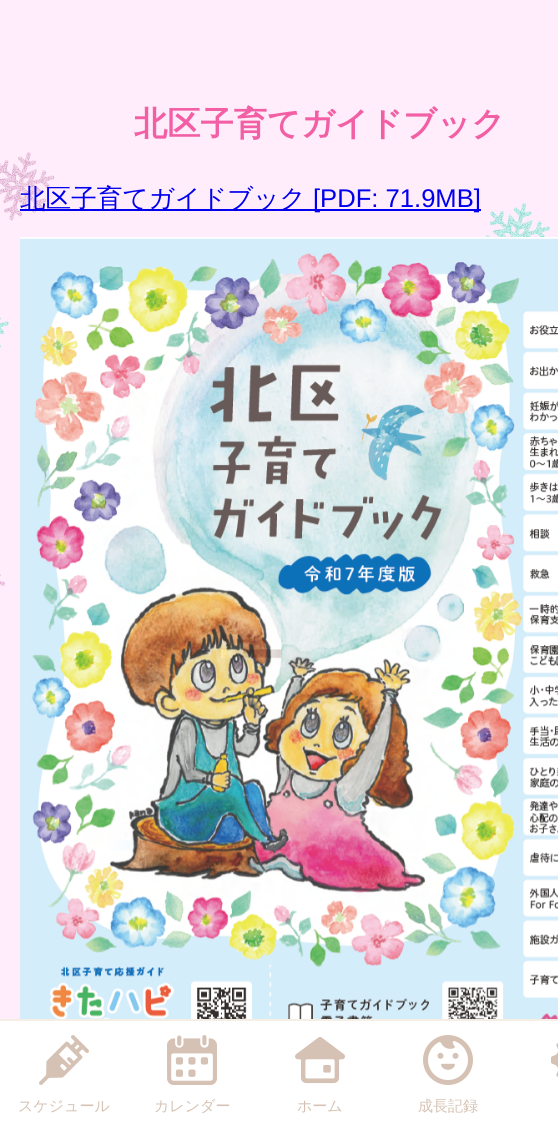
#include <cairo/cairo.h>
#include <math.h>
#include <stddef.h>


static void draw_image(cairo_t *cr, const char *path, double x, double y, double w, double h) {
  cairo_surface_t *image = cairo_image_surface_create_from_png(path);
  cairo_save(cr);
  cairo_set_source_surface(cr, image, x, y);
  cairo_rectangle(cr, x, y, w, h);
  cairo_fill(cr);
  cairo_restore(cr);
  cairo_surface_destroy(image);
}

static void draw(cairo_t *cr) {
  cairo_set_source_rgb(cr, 1, 1, 1);
  cairo_paint(cr);
  draw_image(cr, "images/1.png", 0, 0, 558, 1019);
  cairo_set_source_rgb(cr, 0, 0, 238 / 255.0);
  cairo_rectangle(cr, 20, 209, 461, 2);
  cairo_fill(cr);
  cairo_set_source_rgb(cr, 1, 1, 1);
  cairo_rectangle(cr, 20, 237, 538, 1);
  cairo_fill(cr);
  draw_image(cr, "images/2.png", 20, 238, 538, 781);
  cairo_set_source_rgb(cr, 245 / 255.0, 238 / 255.0, 229 / 255.0);
  cairo_rectangle(cr, 0, 1019, 558, 2);
  cairo_fill(cr);
  draw_image(cr, "images/3.png", 551, 1042, 7, 36);
  draw_image(cr, "images/4.png", 39, 1035, 50, 50);
  draw_image(cr, "images/5.png", 167, 1035, 50, 50);
  draw_image(cr, "images/6.png", 295, 1037, 50, 47);
  draw_image(cr, "images/7.png", 423, 1035, 50, 50);
  cairo_select_font_face(cr, "WenQuanYi Zen Hei", CAIRO_FONT_SLANT_NORMAL, CAIRO_FONT_WEIGHT_BOLD);
  cairo_set_font_size(cr, 33.25);
  cairo_set_source_rgb(cr, 242 / 255.0, 95 / 255.0, 164 / 255.0);
  cairo_move_to(cr, 134, 135);
  cairo_show_text(cr, "北区子育てガイドブック");
  cairo_select_font_face(cr, "WenQuanYi Zen Hei Medium", CAIRO_FONT_SLANT_NORMAL, CAIRO_FONT_WEIGHT_NORMAL);
  cairo_set_font_size(cr, 25.6);
  cairo_set_source_rgb(cr, 0, 0, 238 / 255.0);
  cairo_move_to(cr, 20, 207);
  cairo_show_text(cr, "北区子育てガイドブック");
  cairo_select_font_face(cr, "Liberation Sans", CAIRO_FONT_SLANT_NORMAL, CAIRO_FONT_WEIGHT_NORMAL);
  cairo_move_to(cr, 313, 207);
  cairo_show_text(cr, "[PDF: 71.9MB]");
  cairo_select_font_face(cr, "WenQuanYi Zen Hei Medium", CAIRO_FONT_SLANT_NORMAL, CAIRO_FONT_WEIGHT_NORMAL);
  cairo_set_font_size(cr, 15);
  cairo_set_source_rgb(cr, 213 / 255.0, 194 / 255.0, 180 / 255.0);
  cairo_move_to(cr, 18, 1111);
  cairo_show_text(cr, "スケジュール");
  cairo_move_to(cr, 154, 1111);
  cairo_show_text(cr, "カレンダー");
  cairo_move_to(cr, 297, 1111);
  cairo_show_text(cr, "ホーム");
  cairo_move_to(cr, 418, 1111);
  cairo_show_text(cr, "成長記録");
}

int main(void) {
  cairo_surface_t *surface = cairo_image_surface_create(CAIRO_FORMAT_RGB24, 558, 1121);
  cairo_t *cr = cairo_create(surface);
  cairo_font_options_t *options = cairo_font_options_create();
  cairo_font_options_set_hint_metrics(options, CAIRO_HINT_METRICS_OFF);
  cairo_font_options_set_hint_style(options, CAIRO_HINT_STYLE_NONE);
  cairo_set_font_options(cr, options);
  cairo_set_miter_limit(cr, 4);
  draw(cr);
  cairo_surface_write_to_png(surface, "out.png");
  cairo_font_options_destroy(options);
  cairo_destroy(cr);
  cairo_surface_destroy(surface);
  return 0;
}
